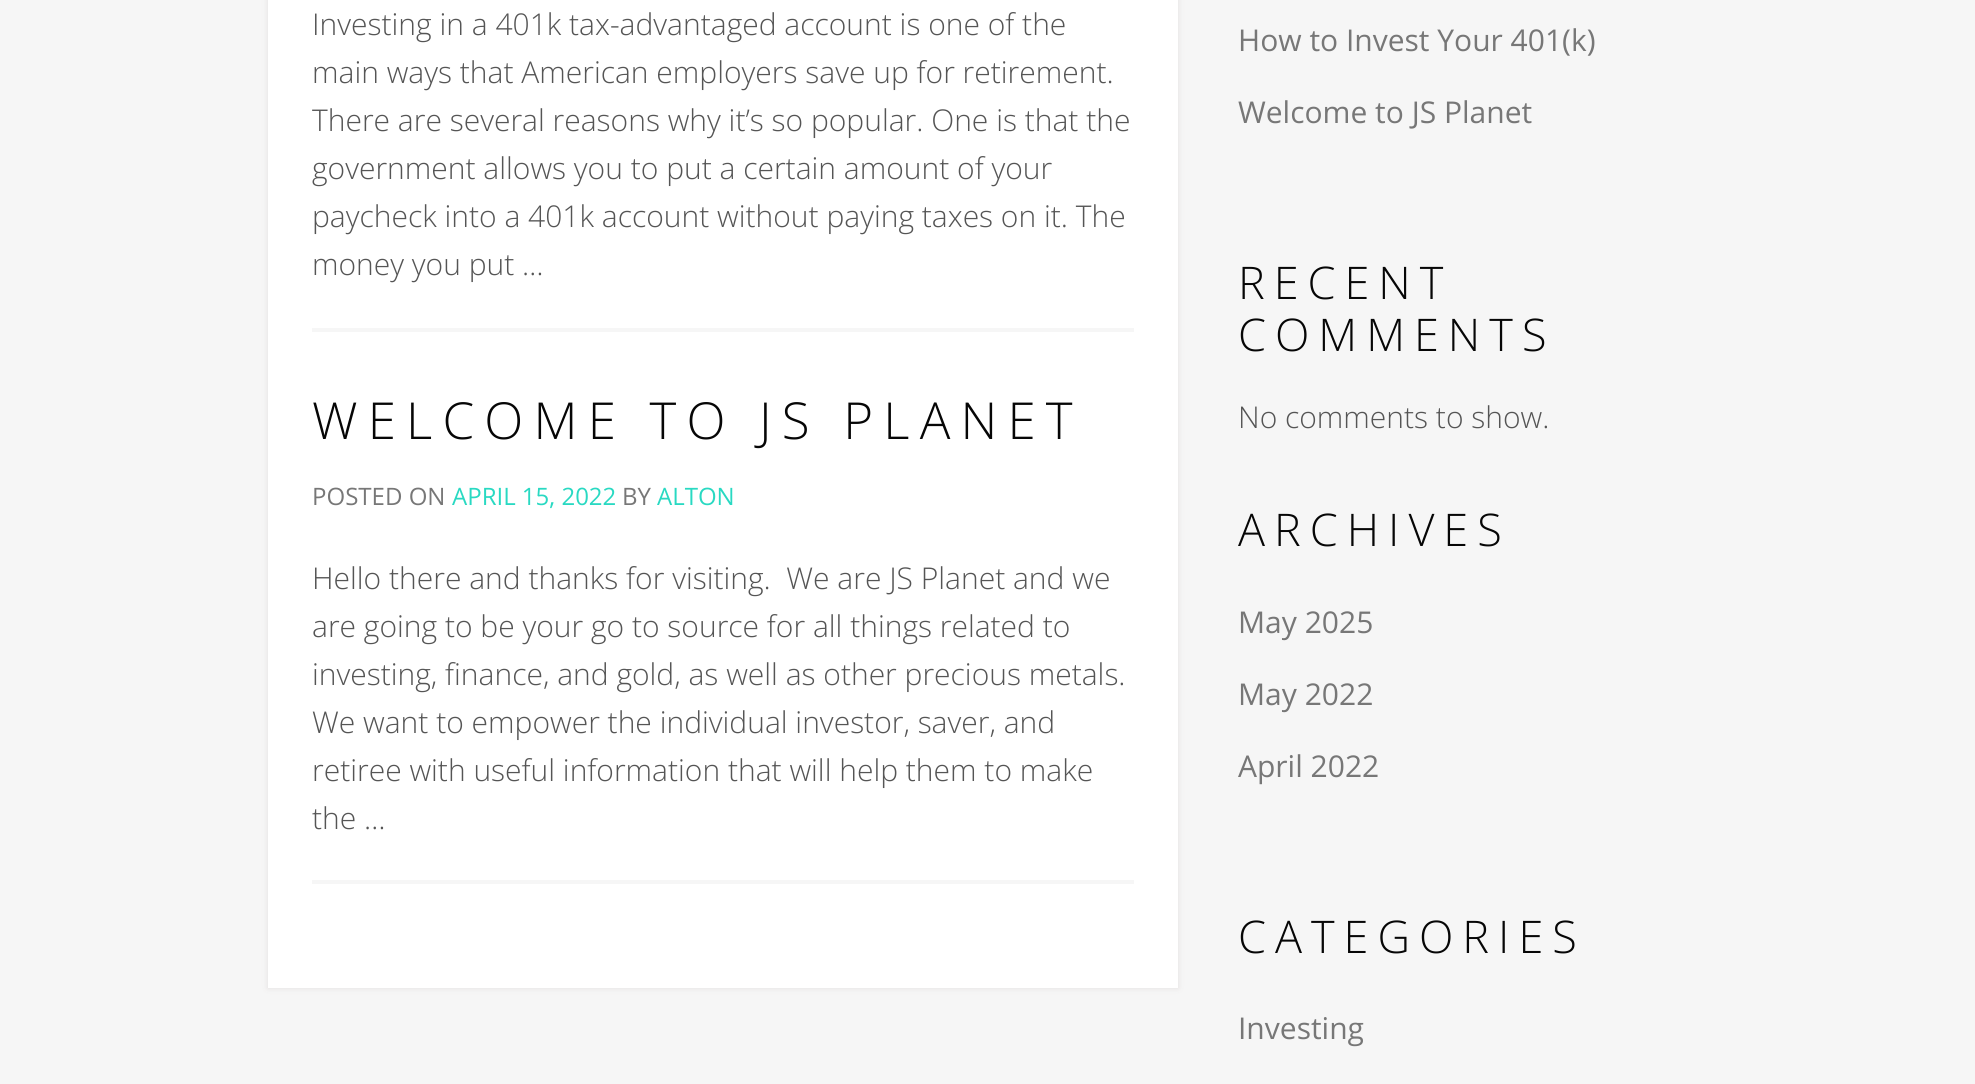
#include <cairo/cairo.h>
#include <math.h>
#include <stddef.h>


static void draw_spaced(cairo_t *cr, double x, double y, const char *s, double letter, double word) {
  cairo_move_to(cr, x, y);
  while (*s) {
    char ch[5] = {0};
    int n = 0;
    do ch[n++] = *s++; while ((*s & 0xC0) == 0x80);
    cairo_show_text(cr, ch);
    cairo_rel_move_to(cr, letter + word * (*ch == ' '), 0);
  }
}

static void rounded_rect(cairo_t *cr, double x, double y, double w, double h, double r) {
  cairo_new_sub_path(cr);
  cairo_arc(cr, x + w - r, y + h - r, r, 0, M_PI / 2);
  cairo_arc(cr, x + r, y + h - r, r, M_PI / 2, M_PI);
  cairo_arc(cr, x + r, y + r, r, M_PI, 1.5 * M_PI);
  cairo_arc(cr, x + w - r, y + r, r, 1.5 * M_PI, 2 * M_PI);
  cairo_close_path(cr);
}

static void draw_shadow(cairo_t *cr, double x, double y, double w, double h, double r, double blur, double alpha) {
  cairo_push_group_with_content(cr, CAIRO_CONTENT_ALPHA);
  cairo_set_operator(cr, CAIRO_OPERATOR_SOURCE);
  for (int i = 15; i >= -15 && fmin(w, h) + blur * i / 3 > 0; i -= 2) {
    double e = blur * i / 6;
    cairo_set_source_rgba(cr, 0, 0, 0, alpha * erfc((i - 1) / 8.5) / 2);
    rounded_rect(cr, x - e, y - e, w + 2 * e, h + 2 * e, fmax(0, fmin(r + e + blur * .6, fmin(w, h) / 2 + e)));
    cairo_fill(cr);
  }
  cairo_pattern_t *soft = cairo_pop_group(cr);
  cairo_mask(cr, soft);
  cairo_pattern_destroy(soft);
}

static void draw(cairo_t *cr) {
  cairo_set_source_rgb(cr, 246 / 255.0, 246 / 255.0, 246 / 255.0);
  cairo_paint(cr);
  cairo_set_source_rgb(cr, 225 / 255.0, 222 / 255.0, 222 / 255.0);
  draw_shadow(cr, 268, -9, 910, 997, 0, 3, 1);
  cairo_set_source_rgb(cr, 1, 1, 1);
  cairo_rectangle(cr, 268, 0, 910, 988);
  cairo_fill(cr);
  cairo_set_source_rgb(cr, 246 / 255.0, 246 / 255.0, 246 / 255.0);
  cairo_rectangle(cr, 312, 328, 822, 4);
  cairo_fill(cr);
  cairo_rectangle(cr, 312, 880, 822, 4);
  cairo_fill(cr);
  cairo_select_font_face(cr, "Open Sans Light", CAIRO_FONT_SLANT_NORMAL, CAIRO_FONT_WEIGHT_NORMAL);
  cairo_set_font_size(cr, 30);
  cairo_set_source_rgb(cr, 85 / 255.0, 85 / 255.0, 85 / 255.0);
  cairo_move_to(cr, 312, 35);
  cairo_show_text(cr, "Investing in a 401k tax-advantaged account is one of the");
  cairo_move_to(cr, 312, 83);
  cairo_show_text(cr, "main ways that American employers save up for retirement.");
  cairo_move_to(cr, 312, 131);
  cairo_show_text(cr, "There are several reasons why it’s so popular. One is that the");
  cairo_move_to(cr, 312, 179);
  cairo_show_text(cr, "government allows you to put a certain amount of your");
  cairo_move_to(cr, 312, 227);
  cairo_show_text(cr, "paycheck into a 401k account without paying taxes on it. The");
  cairo_move_to(cr, 312, 275);
  cairo_show_text(cr, "money you put …");
  cairo_set_font_size(cr, 51);
  cairo_set_source_rgb(cr, 6 / 255.0, 6 / 255.0, 6 / 255.0);
  draw_spaced(cr, 312, 439, "WELCOME TO JS PLANET", 10.2, 0);
  cairo_select_font_face(cr, "Open Sans", CAIRO_FONT_SLANT_NORMAL, CAIRO_FONT_WEIGHT_NORMAL);
  cairo_set_font_size(cr, 24);
  cairo_set_source_rgb(cr, 119 / 255.0, 119 / 255.0, 119 / 255.0);
  cairo_move_to(cr, 312, 505);
  cairo_show_text(cr, "POSTED ON");
  cairo_set_source_rgb(cr, 41 / 255.0, 217 / 255.0, 194 / 255.0);
  cairo_move_to(cr, 452, 505);
  cairo_show_text(cr, "APRIL 15, 2022");
  cairo_set_source_rgb(cr, 119 / 255.0, 119 / 255.0, 119 / 255.0);
  cairo_move_to(cr, 622, 505);
  cairo_show_text(cr, "BY");
  cairo_set_source_rgb(cr, 41 / 255.0, 217 / 255.0, 194 / 255.0);
  cairo_move_to(cr, 657, 505);
  cairo_show_text(cr, "ALTON");
  cairo_select_font_face(cr, "Open Sans Light", CAIRO_FONT_SLANT_NORMAL, CAIRO_FONT_WEIGHT_NORMAL);
  cairo_set_font_size(cr, 30);
  cairo_set_source_rgb(cr, 85 / 255.0, 85 / 255.0, 85 / 255.0);
  cairo_move_to(cr, 312, 589);
  cairo_show_text(cr, "Hello there and thanks for visiting.  We are JS Planet and we");
  cairo_move_to(cr, 312, 637);
  cairo_show_text(cr, "are going to be your go to source for all things related to");
  cairo_move_to(cr, 312, 685);
  cairo_show_text(cr, "investing, finance, and gold, as well as other precious metals.");
  cairo_move_to(cr, 312, 733);
  cairo_show_text(cr, "We want to empower the individual investor, saver, and");
  cairo_move_to(cr, 312, 781);
  cairo_show_text(cr, "retiree with useful information that will help them to make");
  cairo_move_to(cr, 312, 829);
  cairo_show_text(cr, "the …");
  cairo_select_font_face(cr, "Open Sans", CAIRO_FONT_SLANT_NORMAL, CAIRO_FONT_WEIGHT_NORMAL);
  cairo_set_source_rgb(cr, 119 / 255.0, 119 / 255.0, 119 / 255.0);
  cairo_move_to(cr, 1238, 51);
  cairo_show_text(cr, "How to Invest Your 401(k)");
  cairo_move_to(cr, 1238, 123);
  cairo_show_text(cr, "Welcome to JS Planet");
  cairo_select_font_face(cr, "Open Sans Light", CAIRO_FONT_SLANT_NORMAL, CAIRO_FONT_WEIGHT_NORMAL);
  cairo_set_font_size(cr, 45);
  cairo_set_source_rgb(cr, 6 / 255.0, 6 / 255.0, 6 / 255.0);
  draw_spaced(cr, 1238, 299, "RECENT", 9, 0);
  draw_spaced(cr, 1238, 351, "COMMENTS", 9, 0);
  cairo_set_font_size(cr, 30);
  cairo_set_source_rgb(cr, 85 / 255.0, 85 / 255.0, 85 / 255.0);
  cairo_move_to(cr, 1238, 428);
  cairo_show_text(cr, "No comments to show.");
  cairo_set_font_size(cr, 45);
  cairo_set_source_rgb(cr, 6 / 255.0, 6 / 255.0, 6 / 255.0);
  draw_spaced(cr, 1238, 546, "ARCHIVES", 9, 0);
  cairo_select_font_face(cr, "Open Sans", CAIRO_FONT_SLANT_NORMAL, CAIRO_FONT_WEIGHT_NORMAL);
  cairo_set_font_size(cr, 30);
  cairo_set_source_rgb(cr, 119 / 255.0, 119 / 255.0, 119 / 255.0);
  cairo_move_to(cr, 1238, 633);
  cairo_show_text(cr, "May 2025");
  cairo_move_to(cr, 1238, 705);
  cairo_show_text(cr, "May 2022");
  cairo_move_to(cr, 1238, 777);
  cairo_show_text(cr, "April 2022");
  cairo_select_font_face(cr, "Open Sans Light", CAIRO_FONT_SLANT_NORMAL, CAIRO_FONT_WEIGHT_NORMAL);
  cairo_set_font_size(cr, 45);
  cairo_set_source_rgb(cr, 6 / 255.0, 6 / 255.0, 6 / 255.0);
  draw_spaced(cr, 1238, 953, "CATEGORIES", 9, 0);
  cairo_select_font_face(cr, "Open Sans", CAIRO_FONT_SLANT_NORMAL, CAIRO_FONT_WEIGHT_NORMAL);
  cairo_set_font_size(cr, 30);
  cairo_set_source_rgb(cr, 119 / 255.0, 119 / 255.0, 119 / 255.0);
  cairo_move_to(cr, 1238, 1039);
  cairo_show_text(cr, "Investing");
}

int main(void) {
  cairo_surface_t *surface = cairo_image_surface_create(CAIRO_FORMAT_RGB24, 1975, 1084);
  cairo_t *cr = cairo_create(surface);
  cairo_font_options_t *options = cairo_font_options_create();
  cairo_font_options_set_hint_metrics(options, CAIRO_HINT_METRICS_OFF);
  cairo_font_options_set_hint_style(options, CAIRO_HINT_STYLE_NONE);
  cairo_set_font_options(cr, options);
  cairo_set_miter_limit(cr, 4);
  draw(cr);
  cairo_surface_write_to_png(surface, "out.png");
  cairo_font_options_destroy(options);
  cairo_destroy(cr);
  cairo_surface_destroy(surface);
  return 0;
}
